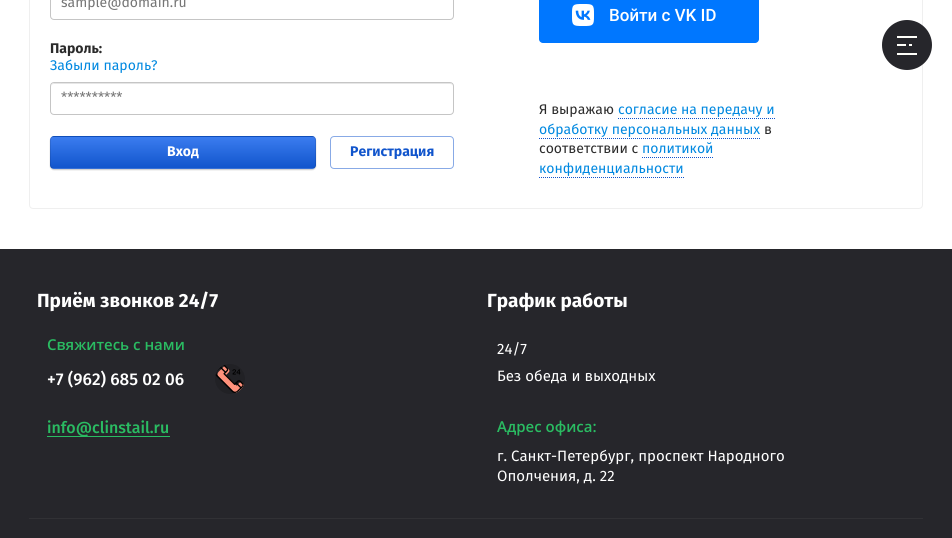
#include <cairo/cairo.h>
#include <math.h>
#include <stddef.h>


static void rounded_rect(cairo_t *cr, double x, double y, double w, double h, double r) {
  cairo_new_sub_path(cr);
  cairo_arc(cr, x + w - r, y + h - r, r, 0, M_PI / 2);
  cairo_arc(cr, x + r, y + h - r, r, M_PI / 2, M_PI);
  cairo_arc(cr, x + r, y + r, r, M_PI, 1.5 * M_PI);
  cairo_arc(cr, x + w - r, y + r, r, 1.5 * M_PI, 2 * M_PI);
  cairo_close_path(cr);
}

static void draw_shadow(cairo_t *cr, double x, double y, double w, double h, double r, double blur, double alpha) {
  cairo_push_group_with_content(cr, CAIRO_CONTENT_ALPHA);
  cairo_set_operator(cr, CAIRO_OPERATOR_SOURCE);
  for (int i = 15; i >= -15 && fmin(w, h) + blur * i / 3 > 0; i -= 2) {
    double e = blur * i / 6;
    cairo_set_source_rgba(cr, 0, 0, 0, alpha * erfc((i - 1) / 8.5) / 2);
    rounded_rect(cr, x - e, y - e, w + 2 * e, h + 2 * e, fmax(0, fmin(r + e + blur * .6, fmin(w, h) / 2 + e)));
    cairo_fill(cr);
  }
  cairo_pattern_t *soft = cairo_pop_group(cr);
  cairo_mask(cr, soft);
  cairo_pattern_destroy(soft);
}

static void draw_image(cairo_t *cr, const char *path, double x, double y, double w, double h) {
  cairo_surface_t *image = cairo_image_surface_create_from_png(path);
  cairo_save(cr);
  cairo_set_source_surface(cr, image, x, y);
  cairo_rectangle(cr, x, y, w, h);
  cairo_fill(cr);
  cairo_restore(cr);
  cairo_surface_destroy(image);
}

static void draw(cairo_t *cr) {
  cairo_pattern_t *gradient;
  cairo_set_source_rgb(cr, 1, 1, 1);
  cairo_paint(cr);
  rounded_rect(cr, 29.5, -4.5, 893, 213, 3.5);
  cairo_set_source_rgb(cr, 239 / 255.0, 239 / 255.0, 239 / 255.0);
  cairo_set_line_width(cr, 1);
  cairo_stroke(cr);
  rounded_rect(cr, 50.5, -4.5, 403, 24, 3.5);
  cairo_set_source_rgb(cr, 197 / 255.0, 197 / 255.0, 197 / 255.0);
  cairo_stroke(cr);
  cairo_set_source_rgb(cr, 230 / 255.0, 230 / 255.0, 230 / 255.0);
  cairo_new_path(cr);
  cairo_move_to(cr, 54, 84);
  cairo_line_to(cr, 450, 84);
  cairo_curve_to(cr, 452, 84, 453, 85, 453, 87);
  cairo_curve_to(cr, 453, 85, 452, 83, 450, 83);
  cairo_line_to(cr, 54, 83);
  cairo_line_to(cr, 52, 84);
  cairo_line_to(cr, 51, 87);
  cairo_curve_to(cr, 51, 85, 52, 84, 54, 84);
  cairo_close_path(cr);
  cairo_fill(cr);
  rounded_rect(cr, 50.5, 82.5, 403, 32, 3.5);
  cairo_set_source_rgb(cr, 197 / 255.0, 197 / 255.0, 197 / 255.0);
  cairo_stroke(cr);
  cairo_set_source_rgb(cr, 0, 0, 0);
  draw_shadow(cr, 50, 137, 266, 33, 4, 0.5, 0.2);
  cairo_save(cr);
  rounded_rect(cr, 50, 136, 266, 33, 4);
  cairo_clip(cr);
  gradient = cairo_pattern_create_linear(183, 106, 183, 137);
  cairo_pattern_add_color_stop_rgba(gradient, 0, 59 / 255.0, 124 / 255.0, 239 / 255.0, 1);
  cairo_pattern_add_color_stop_rgba(gradient, 1, 17 / 255.0, 85 / 255.0, 204 / 255.0, 1);
  cairo_set_source(cr, gradient);
  cairo_pattern_destroy(gradient);
  cairo_rectangle(cr, 50, 136, 266, 1);
  cairo_fill(cr);
  gradient = cairo_pattern_create_linear(183, 137, 183, 168);
  cairo_pattern_add_color_stop_rgba(gradient, 0, 59 / 255.0, 124 / 255.0, 239 / 255.0, 1);
  cairo_pattern_add_color_stop_rgba(gradient, 1, 17 / 255.0, 85 / 255.0, 204 / 255.0, 1);
  cairo_set_source(cr, gradient);
  cairo_pattern_destroy(gradient);
  cairo_rectangle(cr, 50, 137, 266, 31);
  cairo_fill(cr);
  gradient = cairo_pattern_create_linear(183, 168, 183, 199);
  cairo_pattern_add_color_stop_rgba(gradient, 0, 59 / 255.0, 124 / 255.0, 239 / 255.0, 1);
  cairo_pattern_add_color_stop_rgba(gradient, 1, 17 / 255.0, 85 / 255.0, 204 / 255.0, 1);
  cairo_set_source(cr, gradient);
  cairo_pattern_destroy(gradient);
  cairo_rectangle(cr, 50, 168, 266, 1);
  cairo_fill(cr);
  cairo_restore(cr);
  rounded_rect(cr, 50.5, 136.5, 265, 32, 3.5);
  cairo_set_source_rgba(cr, 0, 0, 0, 0.1);
  cairo_stroke(cr);
  rounded_rect(cr, 330.5, 136.5, 123, 32, 3.5);
  cairo_set_source_rgb(cr, 136 / 255.0, 170 / 255.0, 230 / 255.0);
  cairo_stroke(cr);
  cairo_set_source_rgb(cr, 0, 119 / 255.0, 1);
  rounded_rect(cr, 539, -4, 220, 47, 4);
  cairo_fill(cr);
  draw_image(cr, "images/1.png", 572, 4, 144, 22);
  cairo_new_path(cr);
  cairo_move_to(cr, 618, 118.5);
  cairo_line_to(cr, 775, 118.5);
  cairo_set_source_rgb(cr, 17 / 255.0, 85 / 255.0, 204 / 255.0);
  cairo_set_dash(cr, (double[]){1, 1}, 2, 0);
  cairo_stroke(cr);
  cairo_new_path(cr);
  cairo_move_to(cr, 539, 138.5);
  cairo_line_to(cr, 760, 138.5);
  cairo_stroke(cr);
  cairo_new_path(cr);
  cairo_move_to(cr, 642, 157.5);
  cairo_line_to(cr, 714, 157.5);
  cairo_stroke(cr);
  cairo_new_path(cr);
  cairo_move_to(cr, 539, 177.5);
  cairo_line_to(cr, 684, 177.5);
  cairo_stroke(cr);
  cairo_set_source_rgb(cr, 38 / 255.0, 38 / 255.0, 43 / 255.0);
  cairo_arc(cr, 907, 45, 25, 0, 2 * M_PI);
  cairo_fill(cr);
  draw_image(cr, "images/2.png", 897, 36, 20, 19);
  cairo_rectangle(cr, 0, 249, 952, 289);
  cairo_fill(cr);
  cairo_set_source_rgb(cr, 49 / 255.0, 49 / 255.0, 53 / 255.0);
  cairo_rectangle(cr, 29, 518, 894, 1);
  cairo_fill(cr);
  cairo_set_source_rgb(cr, 33 / 255.0, 33 / 255.0, 37 / 255.0);
  cairo_arc(cr, 230, 379, 15, 0, 2 * M_PI);
  cairo_fill(cr);
  draw_image(cr, "images/3.png", 215, 365, 29, 28);
  cairo_set_source_rgb(cr, 42 / 255.0, 188 / 255.0, 98 / 255.0);
  cairo_rectangle(cr, 47, 436, 123, 1);
  cairo_fill(cr);
  cairo_select_font_face(cr, "Fira Sans", CAIRO_FONT_SLANT_NORMAL, CAIRO_FONT_WEIGHT_NORMAL);
  cairo_set_font_size(cr, 14);
  cairo_set_source_rgb(cr, 117 / 255.0, 117 / 255.0, 117 / 255.0);
  cairo_move_to(cr, 61, 7);
  cairo_show_text(cr, "sample@domain.ru");
  cairo_select_font_face(cr, "Fira Sans", CAIRO_FONT_SLANT_NORMAL, CAIRO_FONT_WEIGHT_BOLD);
  cairo_set_source_rgb(cr, 43 / 255.0, 43 / 255.0, 43 / 255.0);
  cairo_move_to(cr, 50, 53);
  cairo_show_text(cr, "Пароль:");
  cairo_select_font_face(cr, "Fira Sans", CAIRO_FONT_SLANT_NORMAL, CAIRO_FONT_WEIGHT_NORMAL);
  cairo_set_source_rgb(cr, 0, 136 / 255.0, 224 / 255.0);
  cairo_move_to(cr, 50, 70);
  cairo_show_text(cr, "Забыли пароль?");
  cairo_set_source_rgb(cr, 117 / 255.0, 117 / 255.0, 117 / 255.0);
  cairo_move_to(cr, 61, 102);
  cairo_show_text(cr, "**********");
  cairo_select_font_face(cr, "Fira Sans", CAIRO_FONT_SLANT_NORMAL, CAIRO_FONT_WEIGHT_BOLD);
  cairo_set_source_rgb(cr, 1, 1, 1);
  cairo_move_to(cr, 167, 156);
  cairo_show_text(cr, "Вход");
  cairo_set_source_rgb(cr, 17 / 255.0, 85 / 255.0, 204 / 255.0);
  cairo_move_to(cr, 350, 156);
  cairo_show_text(cr, "Регистрация");
  cairo_select_font_face(cr, "Fira Sans", CAIRO_FONT_SLANT_NORMAL, CAIRO_FONT_WEIGHT_NORMAL);
  cairo_set_source_rgb(cr, 43 / 255.0, 43 / 255.0, 43 / 255.0);
  cairo_move_to(cr, 539, 114);
  cairo_show_text(cr, "Я выражаю");
  cairo_set_source_rgb(cr, 0, 136 / 255.0, 224 / 255.0);
  cairo_move_to(cr, 618, 114);
  cairo_show_text(cr, "согласие на передачу и");
  cairo_move_to(cr, 539, 134);
  cairo_show_text(cr, "обработку персональных данных");
  cairo_set_source_rgb(cr, 43 / 255.0, 43 / 255.0, 43 / 255.0);
  cairo_move_to(cr, 764, 134);
  cairo_show_text(cr, "в");
  cairo_move_to(cr, 539, 153);
  cairo_show_text(cr, "соответствии с");
  cairo_set_source_rgb(cr, 0, 136 / 255.0, 224 / 255.0);
  cairo_move_to(cr, 642, 153);
  cairo_show_text(cr, "политикой");
  cairo_move_to(cr, 539, 173);
  cairo_show_text(cr, "конфиденциальности");
  cairo_select_font_face(cr, "Fira Sans", CAIRO_FONT_SLANT_NORMAL, CAIRO_FONT_WEIGHT_BOLD);
  cairo_set_font_size(cr, 19);
  cairo_set_source_rgb(cr, 1, 1, 1);
  cairo_move_to(cr, 37, 307);
  cairo_show_text(cr, "Приём звонков 24/7");
  cairo_select_font_face(cr, "Open Sans SemiBold", CAIRO_FONT_SLANT_NORMAL, CAIRO_FONT_WEIGHT_NORMAL);
  cairo_set_font_size(cr, 15);
  cairo_set_source_rgb(cr, 42 / 255.0, 188 / 255.0, 98 / 255.0);
  cairo_move_to(cr, 47, 350);
  cairo_show_text(cr, "Свяжитесь с нами");
  cairo_select_font_face(cr, "Fira Sans Medium", CAIRO_FONT_SLANT_NORMAL, CAIRO_FONT_WEIGHT_NORMAL);
  cairo_set_font_size(cr, 17);
  cairo_set_source_rgb(cr, 1, 1, 1);
  cairo_move_to(cr, 47, 385);
  cairo_show_text(cr, "+7 (962) 685 02 06");
  cairo_set_font_size(cr, 16);
  cairo_set_source_rgb(cr, 42 / 255.0, 188 / 255.0, 98 / 255.0);
  cairo_move_to(cr, 47, 433);
  cairo_show_text(cr, "info@clinstail.ru");
  cairo_select_font_face(cr, "Fira Sans", CAIRO_FONT_SLANT_NORMAL, CAIRO_FONT_WEIGHT_BOLD);
  cairo_set_font_size(cr, 19);
  cairo_set_source_rgb(cr, 1, 1, 1);
  cairo_move_to(cr, 487, 307);
  cairo_show_text(cr, "График работы");
  cairo_select_font_face(cr, "Fira Sans", CAIRO_FONT_SLANT_NORMAL, CAIRO_FONT_WEIGHT_NORMAL);
  cairo_set_font_size(cr, 15);
  cairo_move_to(cr, 497, 354);
  cairo_show_text(cr, "24/7");
  cairo_move_to(cr, 497, 381);
  cairo_show_text(cr, "Без обеда и выходных");
  cairo_select_font_face(cr, "Open Sans SemiBold", CAIRO_FONT_SLANT_NORMAL, CAIRO_FONT_WEIGHT_NORMAL);
  cairo_set_source_rgb(cr, 42 / 255.0, 188 / 255.0, 98 / 255.0);
  cairo_move_to(cr, 497, 432);
  cairo_show_text(cr, "Адрес офиса:");
  cairo_select_font_face(cr, "Fira Sans", CAIRO_FONT_SLANT_NORMAL, CAIRO_FONT_WEIGHT_NORMAL);
  cairo_set_source_rgb(cr, 1, 1, 1);
  cairo_move_to(cr, 497, 461);
  cairo_show_text(cr, "г. Санкт-Петербург, проспект Народного");
  cairo_move_to(cr, 497, 481);
  cairo_show_text(cr, "Ополчения, д. 22");
}

int main(void) {
  cairo_surface_t *surface = cairo_image_surface_create(CAIRO_FORMAT_RGB24, 952, 538);
  cairo_t *cr = cairo_create(surface);
  cairo_font_options_t *options = cairo_font_options_create();
  cairo_font_options_set_hint_metrics(options, CAIRO_HINT_METRICS_OFF);
  cairo_font_options_set_hint_style(options, CAIRO_HINT_STYLE_NONE);
  cairo_set_font_options(cr, options);
  cairo_set_miter_limit(cr, 4);
  draw(cr);
  cairo_surface_write_to_png(surface, "out.png");
  cairo_font_options_destroy(options);
  cairo_destroy(cr);
  cairo_surface_destroy(surface);
  return 0;
}
